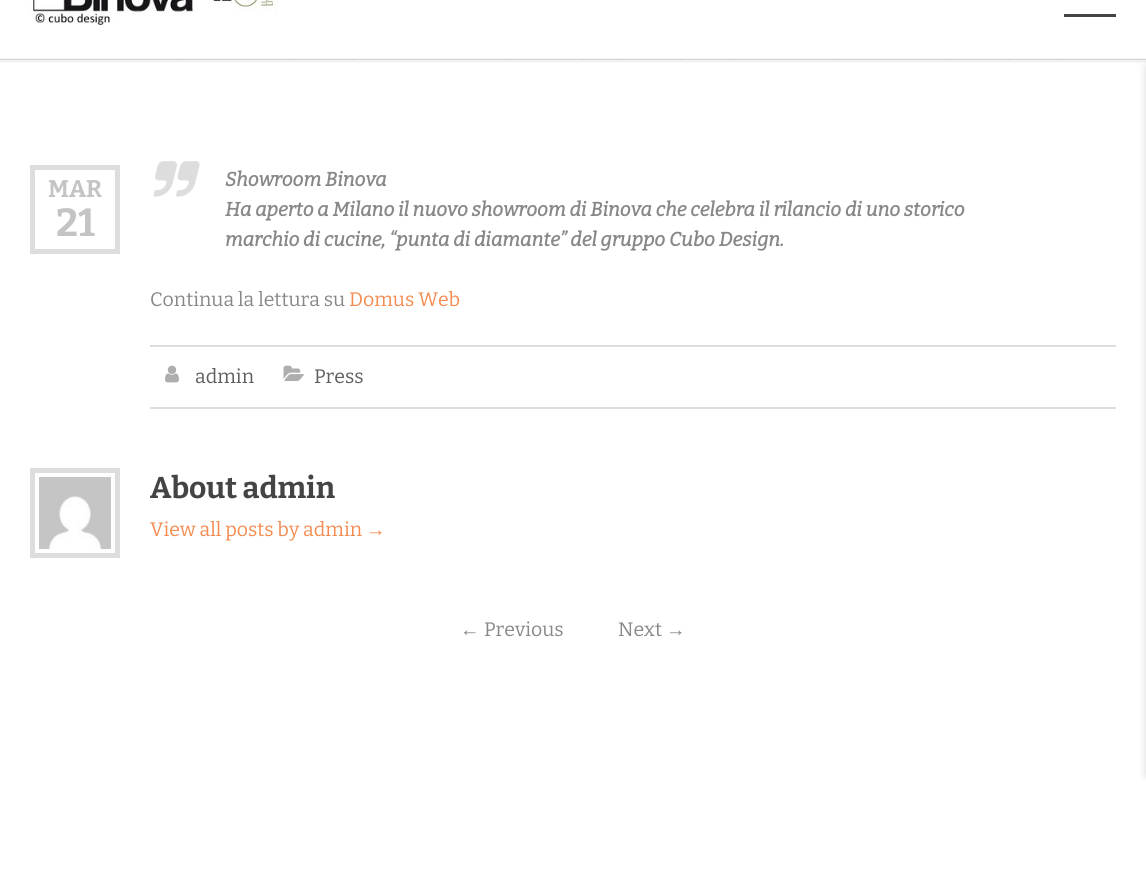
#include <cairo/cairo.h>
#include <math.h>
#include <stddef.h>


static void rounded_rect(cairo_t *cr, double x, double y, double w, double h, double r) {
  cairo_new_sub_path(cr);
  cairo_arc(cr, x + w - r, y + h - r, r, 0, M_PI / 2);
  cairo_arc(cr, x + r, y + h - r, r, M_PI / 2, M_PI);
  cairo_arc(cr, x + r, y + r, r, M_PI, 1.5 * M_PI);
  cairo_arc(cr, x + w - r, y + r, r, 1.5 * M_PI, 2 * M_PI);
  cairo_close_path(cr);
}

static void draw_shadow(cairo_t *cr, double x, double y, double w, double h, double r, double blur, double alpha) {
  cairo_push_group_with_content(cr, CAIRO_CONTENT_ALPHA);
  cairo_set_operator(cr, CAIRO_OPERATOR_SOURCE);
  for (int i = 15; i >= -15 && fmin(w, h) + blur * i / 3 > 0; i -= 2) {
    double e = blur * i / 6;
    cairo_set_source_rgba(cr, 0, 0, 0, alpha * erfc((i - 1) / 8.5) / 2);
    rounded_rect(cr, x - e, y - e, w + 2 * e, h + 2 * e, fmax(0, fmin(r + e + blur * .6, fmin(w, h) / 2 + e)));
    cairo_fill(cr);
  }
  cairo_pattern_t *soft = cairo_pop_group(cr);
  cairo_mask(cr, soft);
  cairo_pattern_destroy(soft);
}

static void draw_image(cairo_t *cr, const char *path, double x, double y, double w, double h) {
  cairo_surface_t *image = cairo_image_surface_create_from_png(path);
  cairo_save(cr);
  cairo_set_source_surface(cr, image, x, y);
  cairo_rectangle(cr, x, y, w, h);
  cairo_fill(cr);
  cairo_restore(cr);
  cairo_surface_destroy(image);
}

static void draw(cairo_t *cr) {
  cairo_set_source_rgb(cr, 242 / 255.0, 242 / 255.0, 242 / 255.0);
  cairo_paint(cr);
  draw_image(cr, "images/1.png", 0, 59, 1146, 1);
  cairo_set_source_rgb(cr, 1, 1, 1);
  cairo_rectangle(cr, 0, 0, 1146, 59);
  cairo_fill(cr);
  draw_image(cr, "images/2.png", 30, 0, 248, 25);
  cairo_set_source_rgb(cr, 68 / 255.0, 68 / 255.0, 68 / 255.0);
  cairo_rectangle(cr, 1064, 14, 52, 3);
  cairo_fill(cr);
  cairo_set_source_rgb(cr, 1, 1, 1);
  cairo_rectangle(cr, 0, 60, 1146, 820);
  cairo_fill(cr);
  draw_image(cr, "images/3.png", 0, 58, 1146, 5);
  cairo_set_source_rgb(cr, 0, 0, 0);
  draw_shadow(cr, 1146, 66, 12, 710, 0, 4, 0.15);
  cairo_rectangle(cr, 32.5, 167.5, 85, 84);
  cairo_set_source_rgb(cr, 221 / 255.0, 221 / 255.0, 221 / 255.0);
  cairo_set_line_width(cr, 5);
  cairo_stroke(cr);
  draw_image(cr, "images/4.png", 153, 161, 47, 36);
  cairo_rectangle(cr, 150, 345, 966, 2);
  cairo_fill(cr);
  cairo_rectangle(cr, 150, 407, 966, 2);
  cairo_fill(cr);
  draw_image(cr, "images/5.png", 165, 365, 14, 18);
  draw_image(cr, "images/6.png", 283, 365, 21, 16);
  cairo_rectangle(cr, 32.5, 470.5, 85, 85);
  cairo_stroke(cr);
  draw_image(cr, "images/7.png", 39, 477, 72, 72);
  cairo_select_font_face(cr, "Bitter", CAIRO_FONT_SLANT_NORMAL, CAIRO_FONT_WEIGHT_BOLD);
  cairo_set_font_size(cr, 24);
  cairo_set_source_rgb(cr, 196 / 255.0, 196 / 255.0, 196 / 255.0);
  cairo_move_to(cr, 48, 197);
  cairo_show_text(cr, "MAR");
  cairo_set_font_size(cr, 39);
  cairo_move_to(cr, 56, 236);
  cairo_show_text(cr, "21");
  cairo_select_font_face(cr, "Bitter", CAIRO_FONT_SLANT_ITALIC, CAIRO_FONT_WEIGHT_BOLD);
  cairo_set_font_size(cr, 19.5);
  cairo_set_source_rgb(cr, 136 / 255.0, 136 / 255.0, 136 / 255.0);
  cairo_move_to(cr, 225, 186);
  cairo_show_text(cr, "Showroom Binova");
  cairo_move_to(cr, 225, 216);
  cairo_show_text(cr, "Ha aperto a Milano il nuovo showroom di Binova che celebra il rilancio di uno storico");
  cairo_move_to(cr, 225, 246);
  cairo_show_text(cr, "marchio di cucine, “punta di diamante” del gruppo Cubo Design.");
  cairo_select_font_face(cr, "Bitter", CAIRO_FONT_SLANT_NORMAL, CAIRO_FONT_WEIGHT_NORMAL);
  cairo_move_to(cr, 150, 306);
  cairo_show_text(cr, "Continua la lettura su");
  cairo_set_source_rgb(cr, 244 / 255.0, 139 / 255.0, 80 / 255.0);
  cairo_move_to(cr, 349, 306);
  cairo_show_text(cr, "Domus Web");
  cairo_set_source_rgb(cr, 94 / 255.0, 94 / 255.0, 94 / 255.0);
  cairo_move_to(cr, 195, 383);
  cairo_show_text(cr, "admin");
  cairo_move_to(cr, 314, 383);
  cairo_show_text(cr, "Press");
  cairo_select_font_face(cr, "Bitter", CAIRO_FONT_SLANT_NORMAL, CAIRO_FONT_WEIGHT_BOLD);
  cairo_set_font_size(cr, 30);
  cairo_set_source_rgb(cr, 68 / 255.0, 68 / 255.0, 68 / 255.0);
  cairo_move_to(cr, 150, 498);
  cairo_show_text(cr, "About admin");
  cairo_select_font_face(cr, "Bitter", CAIRO_FONT_SLANT_NORMAL, CAIRO_FONT_WEIGHT_NORMAL);
  cairo_set_font_size(cr, 19.5);
  cairo_set_source_rgb(cr, 244 / 255.0, 139 / 255.0, 80 / 255.0);
  cairo_move_to(cr, 150, 536);
  cairo_show_text(cr, "View all posts by admin");
  cairo_select_font_face(cr, "Liberation Serif", CAIRO_FONT_SLANT_NORMAL, CAIRO_FONT_WEIGHT_NORMAL);
  cairo_move_to(cr, 366, 536);
  cairo_show_text(cr, "→");
  cairo_set_source_rgb(cr, 136 / 255.0, 136 / 255.0, 136 / 255.0);
  cairo_move_to(cr, 460, 636);
  cairo_show_text(cr, "←");
  cairo_select_font_face(cr, "Bitter", CAIRO_FONT_SLANT_NORMAL, CAIRO_FONT_WEIGHT_NORMAL);
  cairo_move_to(cr, 484, 636);
  cairo_show_text(cr, "Previous");
  cairo_move_to(cr, 618, 636);
  cairo_show_text(cr, "Next");
  cairo_select_font_face(cr, "Liberation Serif", CAIRO_FONT_SLANT_NORMAL, CAIRO_FONT_WEIGHT_NORMAL);
  cairo_move_to(cr, 666, 636);
  cairo_show_text(cr, "→");
}

int main(void) {
  cairo_surface_t *surface = cairo_image_surface_create(CAIRO_FORMAT_RGB24, 1146, 880);
  cairo_t *cr = cairo_create(surface);
  cairo_font_options_t *options = cairo_font_options_create();
  cairo_font_options_set_hint_metrics(options, CAIRO_HINT_METRICS_OFF);
  cairo_font_options_set_hint_style(options, CAIRO_HINT_STYLE_NONE);
  cairo_set_font_options(cr, options);
  cairo_set_miter_limit(cr, 4);
  draw(cr);
  cairo_surface_write_to_png(surface, "out.png");
  cairo_font_options_destroy(options);
  cairo_destroy(cr);
  cairo_surface_destroy(surface);
  return 0;
}
